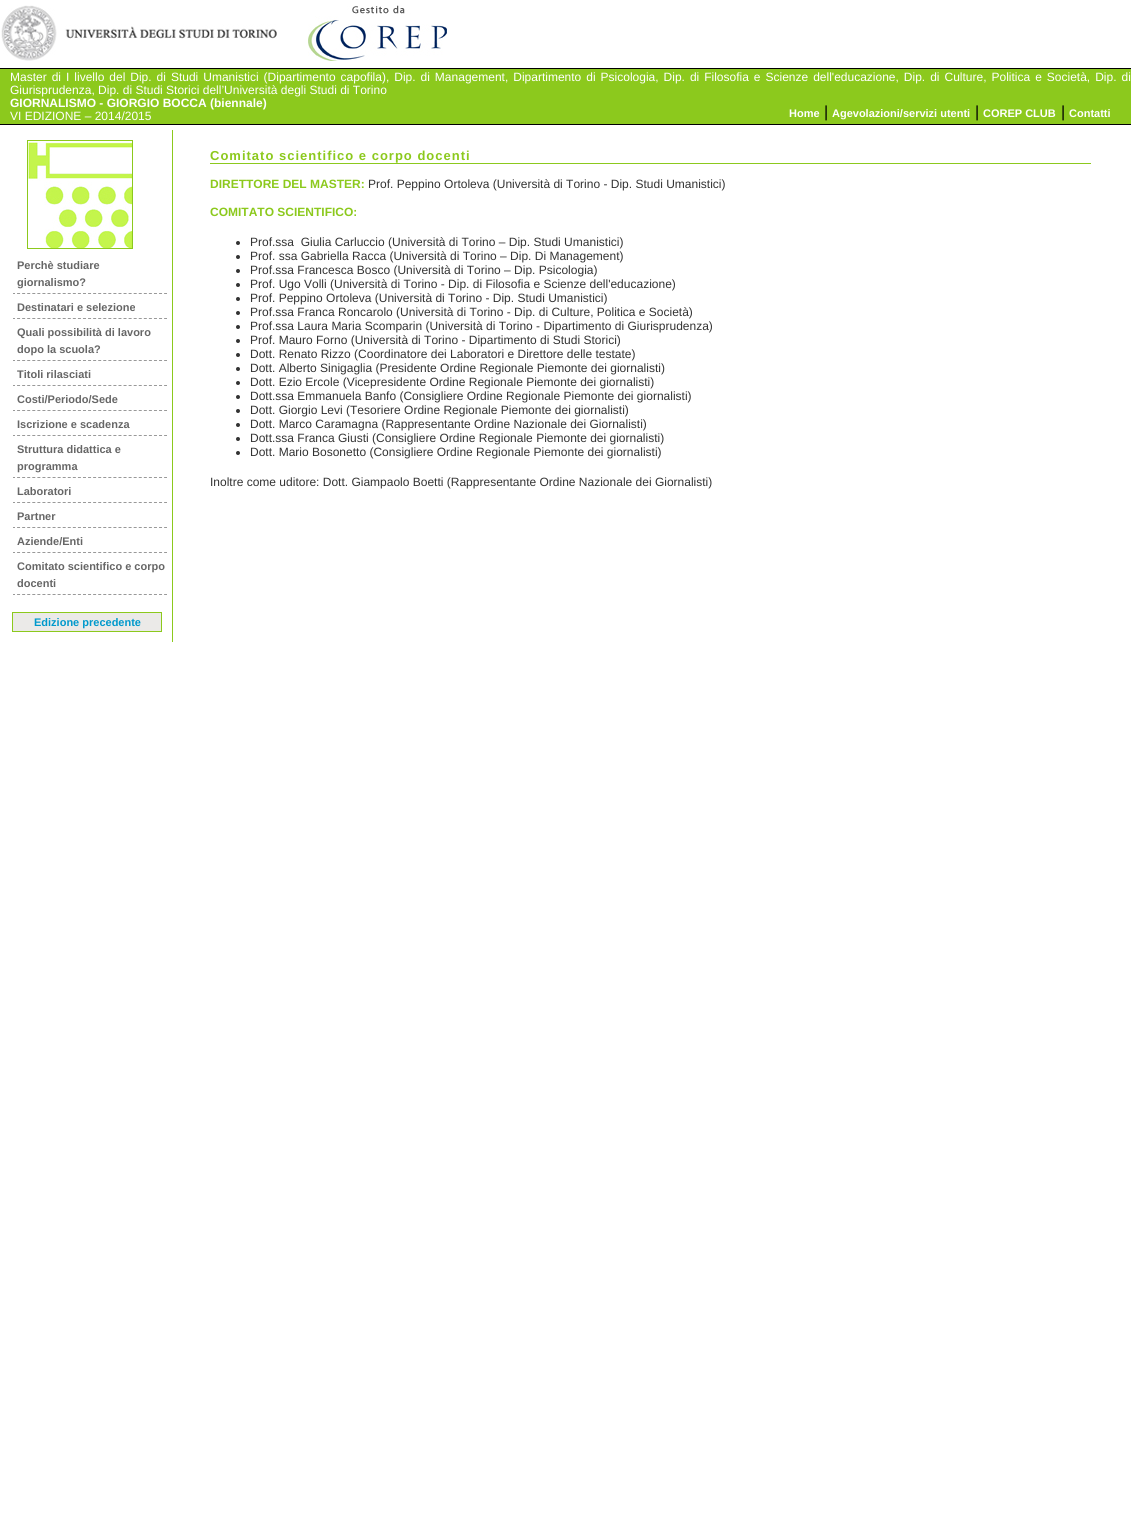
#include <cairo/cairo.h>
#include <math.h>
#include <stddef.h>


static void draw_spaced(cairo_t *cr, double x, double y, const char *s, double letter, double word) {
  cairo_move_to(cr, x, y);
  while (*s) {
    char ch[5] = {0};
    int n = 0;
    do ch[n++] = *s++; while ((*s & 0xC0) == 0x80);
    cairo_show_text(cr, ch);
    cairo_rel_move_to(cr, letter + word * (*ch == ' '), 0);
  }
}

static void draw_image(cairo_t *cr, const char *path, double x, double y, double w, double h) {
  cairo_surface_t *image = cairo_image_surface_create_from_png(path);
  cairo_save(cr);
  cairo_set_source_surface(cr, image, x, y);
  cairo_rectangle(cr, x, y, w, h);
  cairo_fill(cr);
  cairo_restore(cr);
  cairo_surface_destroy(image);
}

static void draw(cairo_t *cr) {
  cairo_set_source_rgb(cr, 1, 1, 1);
  cairo_paint(cr);
  draw_image(cr, "images/1.png", 1, 5, 276, 56);
  draw_image(cr, "images/2.png", 308, 5, 139, 56);
  cairo_set_source_rgb(cr, 140 / 255.0, 201 / 255.0, 29 / 255.0);
  cairo_rectangle(cr, 0, 69, 1131, 55);
  cairo_fill(cr);
  cairo_set_source_rgb(cr, 0, 0, 0);
  cairo_rectangle(cr, 0, 68, 1131, 1);
  cairo_fill(cr);
  cairo_rectangle(cr, 0, 124, 1131, 1);
  cairo_fill(cr);
  cairo_set_source_rgb(cr, 140 / 255.0, 201 / 255.0, 29 / 255.0);
  cairo_rectangle(cr, 172, 130, 1, 512);
  cairo_fill(cr);
  cairo_rectangle(cr, 27.5, 140.5, 105, 108);
  cairo_set_line_width(cr, 1);
  cairo_stroke(cr);
  draw_image(cr, "images/3.png", 28, 142, 104, 106);
  cairo_new_path(cr);
  cairo_move_to(cr, 12, 293.5);
  cairo_line_to(cr, 167, 293.5);
  cairo_set_source_rgb(cr, 153 / 255.0, 153 / 255.0, 153 / 255.0);
  cairo_set_dash(cr, (double[]){3, 2.07}, 2, 0);
  cairo_stroke(cr);
  cairo_set_source_rgb(cr, 1, 1, 1);
  cairo_rectangle(cr, 12, 293, 1, 1);
  cairo_fill(cr);
  cairo_new_path(cr);
  cairo_move_to(cr, 12, 318.5);
  cairo_line_to(cr, 167, 318.5);
  cairo_set_source_rgb(cr, 153 / 255.0, 153 / 255.0, 153 / 255.0);
  cairo_stroke(cr);
  cairo_set_source_rgb(cr, 1, 1, 1);
  cairo_rectangle(cr, 12, 318, 1, 1);
  cairo_fill(cr);
  cairo_new_path(cr);
  cairo_move_to(cr, 12, 360.5);
  cairo_line_to(cr, 167, 360.5);
  cairo_set_source_rgb(cr, 153 / 255.0, 153 / 255.0, 153 / 255.0);
  cairo_stroke(cr);
  cairo_set_source_rgb(cr, 1, 1, 1);
  cairo_rectangle(cr, 12, 360, 1, 1);
  cairo_fill(cr);
  cairo_new_path(cr);
  cairo_move_to(cr, 12, 385.5);
  cairo_line_to(cr, 167, 385.5);
  cairo_set_source_rgb(cr, 153 / 255.0, 153 / 255.0, 153 / 255.0);
  cairo_stroke(cr);
  cairo_set_source_rgb(cr, 1, 1, 1);
  cairo_rectangle(cr, 12, 385, 1, 1);
  cairo_fill(cr);
  cairo_new_path(cr);
  cairo_move_to(cr, 12, 410.5);
  cairo_line_to(cr, 167, 410.5);
  cairo_set_source_rgb(cr, 153 / 255.0, 153 / 255.0, 153 / 255.0);
  cairo_stroke(cr);
  cairo_set_source_rgb(cr, 1, 1, 1);
  cairo_rectangle(cr, 12, 410, 1, 1);
  cairo_fill(cr);
  cairo_new_path(cr);
  cairo_move_to(cr, 12, 435.5);
  cairo_line_to(cr, 167, 435.5);
  cairo_set_source_rgb(cr, 153 / 255.0, 153 / 255.0, 153 / 255.0);
  cairo_stroke(cr);
  cairo_set_source_rgb(cr, 1, 1, 1);
  cairo_rectangle(cr, 12, 435, 1, 1);
  cairo_fill(cr);
  cairo_new_path(cr);
  cairo_move_to(cr, 12, 477.5);
  cairo_line_to(cr, 167, 477.5);
  cairo_set_source_rgb(cr, 153 / 255.0, 153 / 255.0, 153 / 255.0);
  cairo_stroke(cr);
  cairo_set_source_rgb(cr, 1, 1, 1);
  cairo_rectangle(cr, 12, 477, 1, 1);
  cairo_fill(cr);
  cairo_new_path(cr);
  cairo_move_to(cr, 12, 502.5);
  cairo_line_to(cr, 167, 502.5);
  cairo_set_source_rgb(cr, 153 / 255.0, 153 / 255.0, 153 / 255.0);
  cairo_stroke(cr);
  cairo_set_source_rgb(cr, 1, 1, 1);
  cairo_rectangle(cr, 12, 502, 1, 1);
  cairo_fill(cr);
  cairo_new_path(cr);
  cairo_move_to(cr, 12, 527.5);
  cairo_line_to(cr, 167, 527.5);
  cairo_set_source_rgb(cr, 153 / 255.0, 153 / 255.0, 153 / 255.0);
  cairo_stroke(cr);
  cairo_set_source_rgb(cr, 1, 1, 1);
  cairo_rectangle(cr, 12, 527, 1, 1);
  cairo_fill(cr);
  cairo_new_path(cr);
  cairo_move_to(cr, 12, 552.5);
  cairo_line_to(cr, 167, 552.5);
  cairo_set_source_rgb(cr, 153 / 255.0, 153 / 255.0, 153 / 255.0);
  cairo_stroke(cr);
  cairo_set_source_rgb(cr, 1, 1, 1);
  cairo_rectangle(cr, 12, 552, 1, 1);
  cairo_fill(cr);
  cairo_new_path(cr);
  cairo_move_to(cr, 12, 594.5);
  cairo_line_to(cr, 167, 594.5);
  cairo_set_source_rgb(cr, 153 / 255.0, 153 / 255.0, 153 / 255.0);
  cairo_stroke(cr);
  cairo_set_source_rgb(cr, 1, 1, 1);
  cairo_rectangle(cr, 12, 594, 1, 1);
  cairo_fill(cr);
  cairo_set_source_rgb(cr, 235 / 255.0, 234 / 255.0, 232 / 255.0);
  cairo_rectangle(cr, 12.5, 612.5, 149, 19);
  cairo_fill_preserve(cr);
  cairo_set_source_rgb(cr, 140 / 255.0, 201 / 255.0, 29 / 255.0);
  cairo_set_dash(cr, NULL, 0, 0);
  cairo_stroke(cr);
  cairo_rectangle(cr, 210, 163, 881, 1);
  cairo_fill(cr);
  cairo_set_source_rgb(cr, 51 / 255.0, 51 / 255.0, 51 / 255.0);
  cairo_arc(cr, 238, 243, 2, 0, 2 * M_PI);
  cairo_fill(cr);
  cairo_arc(cr, 238, 257, 2, 0, 2 * M_PI);
  cairo_fill(cr);
  cairo_arc(cr, 238, 271, 2, 0, 2 * M_PI);
  cairo_fill(cr);
  cairo_arc(cr, 238, 285, 2, 0, 2 * M_PI);
  cairo_fill(cr);
  cairo_arc(cr, 238, 299, 2, 0, 2 * M_PI);
  cairo_fill(cr);
  cairo_arc(cr, 238, 313, 2, 0, 2 * M_PI);
  cairo_fill(cr);
  cairo_arc(cr, 238, 327, 2, 0, 2 * M_PI);
  cairo_fill(cr);
  cairo_arc(cr, 238, 341, 2, 0, 2 * M_PI);
  cairo_fill(cr);
  cairo_arc(cr, 238, 355, 2, 0, 2 * M_PI);
  cairo_fill(cr);
  cairo_arc(cr, 238, 369, 2, 0, 2 * M_PI);
  cairo_fill(cr);
  cairo_arc(cr, 238, 383, 2, 0, 2 * M_PI);
  cairo_fill(cr);
  cairo_arc(cr, 238, 397, 2, 0, 2 * M_PI);
  cairo_fill(cr);
  cairo_arc(cr, 238, 411, 2, 0, 2 * M_PI);
  cairo_fill(cr);
  cairo_arc(cr, 238, 425, 2, 0, 2 * M_PI);
  cairo_fill(cr);
  cairo_arc(cr, 238, 439, 2, 0, 2 * M_PI);
  cairo_fill(cr);
  cairo_arc(cr, 238, 453, 2, 0, 2 * M_PI);
  cairo_fill(cr);
  cairo_select_font_face(cr, "Liberation Sans", CAIRO_FONT_SLANT_NORMAL, CAIRO_FONT_WEIGHT_NORMAL);
  cairo_set_font_size(cr, 12);
  cairo_set_source_rgb(cr, 1, 1, 1);
  draw_spaced(cr, 10, 81, "Master di I livello del Dip. di Studi Umanistici (Dipartimento capofila), Dip. di Management, Dipartimento di Psicologia, Dip. di Filosofia e Scienze dell'educazione, Dip. di Culture, Politica e Società, Dip. di", 0, 1.65);
  cairo_move_to(cr, 10, 94);
  cairo_show_text(cr, "Giurisprudenza, Dip. di Studi Storici dell’Università degli Studi di Torino");
  cairo_select_font_face(cr, "Liberation Sans", CAIRO_FONT_SLANT_NORMAL, CAIRO_FONT_WEIGHT_BOLD);
  cairo_move_to(cr, 10, 107);
  cairo_show_text(cr, "GIORNALISMO - GIORGIO BOCCA (biennale)");
  cairo_select_font_face(cr, "Liberation Sans", CAIRO_FONT_SLANT_NORMAL, CAIRO_FONT_WEIGHT_NORMAL);
  cairo_move_to(cr, 10, 120);
  cairo_show_text(cr, "VI EDIZIONE – 2014/2015");
  cairo_select_font_face(cr, "Liberation Sans", CAIRO_FONT_SLANT_NORMAL, CAIRO_FONT_WEIGHT_BOLD);
  cairo_set_font_size(cr, 11);
  cairo_move_to(cr, 789, 117);
  cairo_show_text(cr, "Home");
  cairo_select_font_face(cr, "Liberation Sans", CAIRO_FONT_SLANT_NORMAL, CAIRO_FONT_WEIGHT_NORMAL);
  cairo_set_font_size(cr, 16);
  cairo_set_source_rgb(cr, 0, 0, 0);
  cairo_move_to(cr, 824, 117);
  cairo_show_text(cr, "|");
  cairo_select_font_face(cr, "Liberation Sans", CAIRO_FONT_SLANT_NORMAL, CAIRO_FONT_WEIGHT_BOLD);
  cairo_set_font_size(cr, 11);
  cairo_set_source_rgb(cr, 1, 1, 1);
  cairo_move_to(cr, 832, 117);
  cairo_show_text(cr, "Agevolazioni/servizi utenti");
  cairo_select_font_face(cr, "Liberation Sans", CAIRO_FONT_SLANT_NORMAL, CAIRO_FONT_WEIGHT_NORMAL);
  cairo_set_font_size(cr, 16);
  cairo_set_source_rgb(cr, 0, 0, 0);
  cairo_move_to(cr, 975, 117);
  cairo_show_text(cr, "|");
  cairo_select_font_face(cr, "Liberation Sans", CAIRO_FONT_SLANT_NORMAL, CAIRO_FONT_WEIGHT_BOLD);
  cairo_set_font_size(cr, 11);
  cairo_set_source_rgb(cr, 1, 1, 1);
  cairo_move_to(cr, 983, 117);
  cairo_show_text(cr, "COREP CLUB");
  cairo_select_font_face(cr, "Liberation Sans", CAIRO_FONT_SLANT_NORMAL, CAIRO_FONT_WEIGHT_NORMAL);
  cairo_set_font_size(cr, 16);
  cairo_set_source_rgb(cr, 0, 0, 0);
  cairo_move_to(cr, 1061, 117);
  cairo_show_text(cr, "|");
  cairo_select_font_face(cr, "Liberation Sans", CAIRO_FONT_SLANT_NORMAL, CAIRO_FONT_WEIGHT_BOLD);
  cairo_set_font_size(cr, 11);
  cairo_set_source_rgb(cr, 1, 1, 1);
  cairo_move_to(cr, 1069, 117);
  cairo_show_text(cr, "Contatti");
  cairo_set_source_rgb(cr, 102 / 255.0, 102 / 255.0, 102 / 255.0);
  cairo_move_to(cr, 17, 269);
  cairo_show_text(cr, "Perchè studiare");
  cairo_move_to(cr, 17, 286);
  cairo_show_text(cr, "giornalismo?");
  cairo_move_to(cr, 17, 311);
  cairo_show_text(cr, "Destinatari e selezione");
  cairo_move_to(cr, 17, 336);
  cairo_show_text(cr, "Quali possibilità di lavoro");
  cairo_move_to(cr, 17, 353);
  cairo_show_text(cr, "dopo la scuola?");
  cairo_move_to(cr, 17, 378);
  cairo_show_text(cr, "Titoli rilasciati");
  cairo_move_to(cr, 17, 403);
  cairo_show_text(cr, "Costi/Periodo/Sede");
  cairo_move_to(cr, 17, 428);
  cairo_show_text(cr, "Iscrizione e scadenza");
  cairo_move_to(cr, 17, 453);
  cairo_show_text(cr, "Struttura didattica e");
  cairo_move_to(cr, 17, 470);
  cairo_show_text(cr, "programma");
  cairo_move_to(cr, 17, 495);
  cairo_show_text(cr, "Laboratori");
  cairo_move_to(cr, 17, 520);
  cairo_show_text(cr, "Partner");
  cairo_move_to(cr, 17, 545);
  cairo_show_text(cr, "Aziende/Enti");
  cairo_move_to(cr, 17, 570);
  cairo_show_text(cr, "Comitato scientifico e corpo");
  cairo_move_to(cr, 17, 587);
  cairo_show_text(cr, "docenti");
  cairo_set_source_rgb(cr, 0, 153 / 255.0, 204 / 255.0);
  cairo_move_to(cr, 34, 626);
  cairo_show_text(cr, "Edizione precedente");
  cairo_set_font_size(cr, 13);
  cairo_set_source_rgb(cr, 140 / 255.0, 201 / 255.0, 29 / 255.0);
  draw_spaced(cr, 210, 160, "Comitato scientifico e corpo docenti", 1, 0);
  cairo_set_font_size(cr, 12);
  cairo_move_to(cr, 210, 188);
  cairo_show_text(cr, "DIRETTORE DEL MASTER:");
  cairo_select_font_face(cr, "Liberation Sans", CAIRO_FONT_SLANT_NORMAL, CAIRO_FONT_WEIGHT_NORMAL);
  cairo_set_source_rgb(cr, 51 / 255.0, 51 / 255.0, 51 / 255.0);
  cairo_move_to(cr, 368, 188);
  cairo_show_text(cr, "Prof. Peppino Ortoleva (Università di Torino - Dip. Studi Umanistici)");
  cairo_select_font_face(cr, "Liberation Sans", CAIRO_FONT_SLANT_NORMAL, CAIRO_FONT_WEIGHT_BOLD);
  cairo_set_source_rgb(cr, 140 / 255.0, 201 / 255.0, 29 / 255.0);
  cairo_move_to(cr, 210, 216);
  cairo_show_text(cr, "COMITATO SCIENTIFICO:");
  cairo_select_font_face(cr, "Liberation Sans", CAIRO_FONT_SLANT_NORMAL, CAIRO_FONT_WEIGHT_NORMAL);
  cairo_set_source_rgb(cr, 51 / 255.0, 51 / 255.0, 51 / 255.0);
  cairo_move_to(cr, 250, 246);
  cairo_show_text(cr, "Prof.ssa  Giulia Carluccio (Università di Torino – Dip. Studi Umanistici)");
  cairo_move_to(cr, 250, 260);
  cairo_show_text(cr, "Prof. ssa Gabriella Racca (Università di Torino – Dip. Di Management)");
  cairo_move_to(cr, 250, 274);
  cairo_show_text(cr, "Prof.ssa Francesca Bosco (Università di Torino – Dip. Psicologia)");
  cairo_move_to(cr, 250, 288);
  cairo_show_text(cr, "Prof. Ugo Volli (Università di Torino - Dip. di Filosofia e Scienze dell'educazione)");
  cairo_move_to(cr, 250, 302);
  cairo_show_text(cr, "Prof. Peppino Ortoleva (Università di Torino - Dip. Studi Umanistici)");
  cairo_move_to(cr, 250, 316);
  cairo_show_text(cr, "Prof.ssa Franca Roncarolo (Università di Torino - Dip. di Culture, Politica e Società)");
  cairo_move_to(cr, 250, 330);
  cairo_show_text(cr, "Prof.ssa Laura Maria Scomparin (Università di Torino - Dipartimento di Giurisprudenza)");
  cairo_move_to(cr, 250, 344);
  cairo_show_text(cr, "Prof. Mauro Forno (Università di Torino - Dipartimento di Studi Storici)");
  cairo_move_to(cr, 250, 358);
  cairo_show_text(cr, "Dott. Renato Rizzo (Coordinatore dei Laboratori e Direttore delle testate)");
  cairo_move_to(cr, 250, 372);
  cairo_show_text(cr, "Dott. Alberto Sinigaglia (Presidente Ordine Regionale Piemonte dei giornalisti)");
  cairo_move_to(cr, 250, 386);
  cairo_show_text(cr, "Dott. Ezio Ercole (Vicepresidente Ordine Regionale Piemonte dei giornalisti)");
  cairo_move_to(cr, 250, 400);
  cairo_show_text(cr, "Dott.ssa Emmanuela Banfo (Consigliere Ordine Regionale Piemonte dei giornalisti)");
  cairo_move_to(cr, 250, 414);
  cairo_show_text(cr, "Dott. Giorgio Levi (Tesoriere Ordine Regionale Piemonte dei giornalisti)");
  cairo_move_to(cr, 250, 428);
  cairo_show_text(cr, "Dott. Marco Caramagna (Rappresentante Ordine Nazionale dei Giornalisti)");
  cairo_move_to(cr, 250, 442);
  cairo_show_text(cr, "Dott.ssa Franca Giusti (Consigliere Ordine Regionale Piemonte dei giornalisti)");
  cairo_move_to(cr, 250, 456);
  cairo_show_text(cr, "Dott. Mario Bosonetto (Consigliere Ordine Regionale Piemonte dei giornalisti)");
  cairo_move_to(cr, 210, 486);
  cairo_show_text(cr, "Inoltre come uditore: Dott. Giampaolo Boetti (Rappresentante Ordine Nazionale dei Giornalisti)");
}

int main(void) {
  cairo_surface_t *surface = cairo_image_surface_create(CAIRO_FORMAT_RGB24, 1131, 1525);
  cairo_t *cr = cairo_create(surface);
  cairo_font_options_t *options = cairo_font_options_create();
  cairo_font_options_set_hint_metrics(options, CAIRO_HINT_METRICS_OFF);
  cairo_font_options_set_hint_style(options, CAIRO_HINT_STYLE_NONE);
  cairo_set_font_options(cr, options);
  cairo_set_miter_limit(cr, 4);
  draw(cr);
  cairo_surface_write_to_png(surface, "out.png");
  cairo_font_options_destroy(options);
  cairo_destroy(cr);
  cairo_surface_destroy(surface);
  return 0;
}
